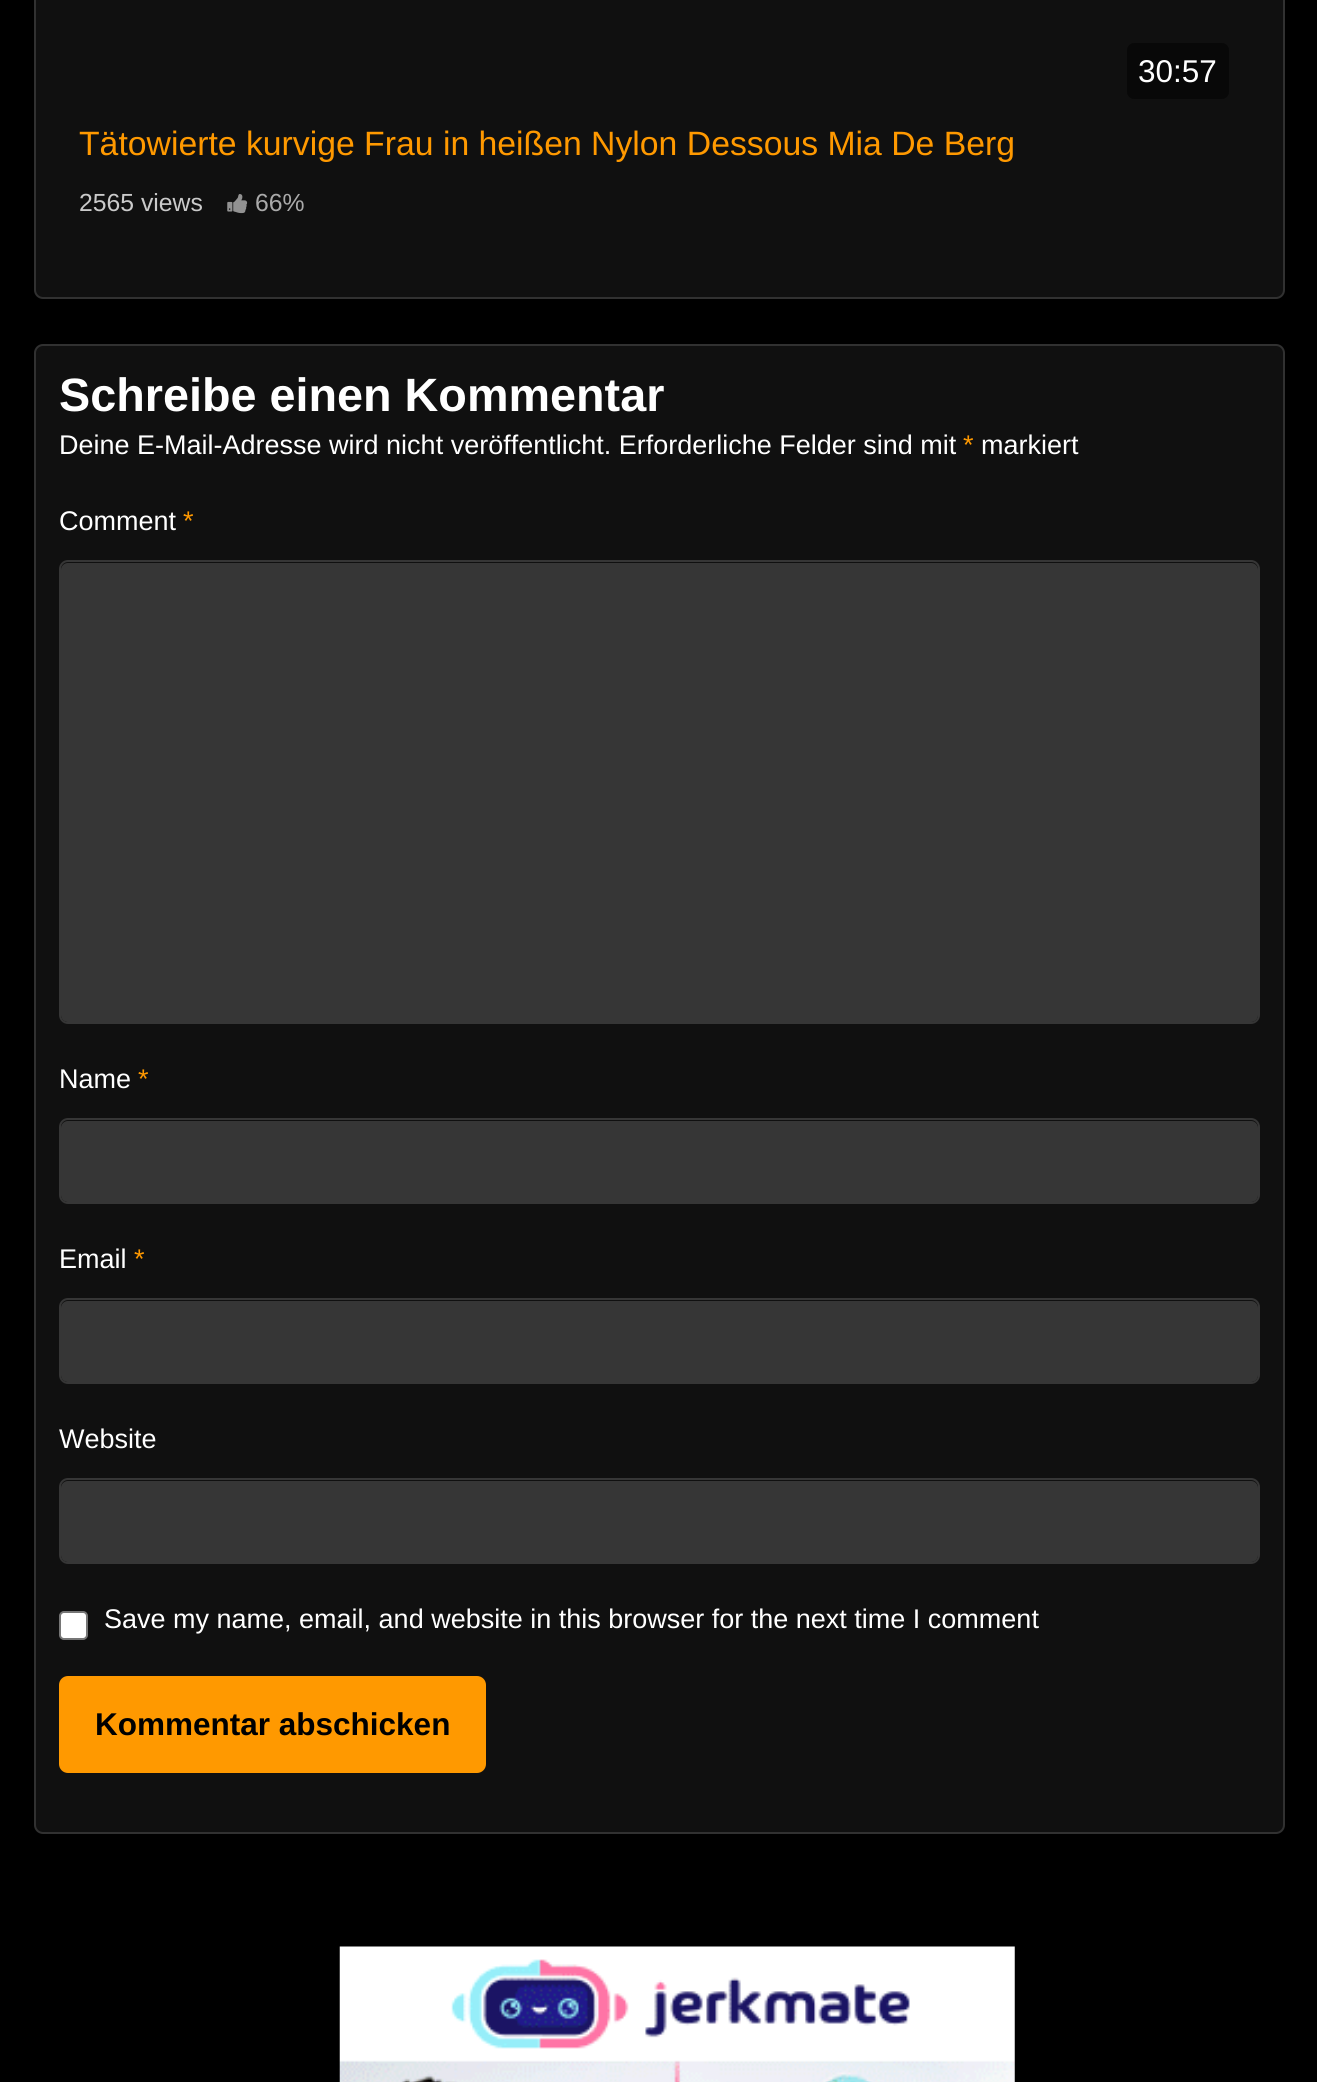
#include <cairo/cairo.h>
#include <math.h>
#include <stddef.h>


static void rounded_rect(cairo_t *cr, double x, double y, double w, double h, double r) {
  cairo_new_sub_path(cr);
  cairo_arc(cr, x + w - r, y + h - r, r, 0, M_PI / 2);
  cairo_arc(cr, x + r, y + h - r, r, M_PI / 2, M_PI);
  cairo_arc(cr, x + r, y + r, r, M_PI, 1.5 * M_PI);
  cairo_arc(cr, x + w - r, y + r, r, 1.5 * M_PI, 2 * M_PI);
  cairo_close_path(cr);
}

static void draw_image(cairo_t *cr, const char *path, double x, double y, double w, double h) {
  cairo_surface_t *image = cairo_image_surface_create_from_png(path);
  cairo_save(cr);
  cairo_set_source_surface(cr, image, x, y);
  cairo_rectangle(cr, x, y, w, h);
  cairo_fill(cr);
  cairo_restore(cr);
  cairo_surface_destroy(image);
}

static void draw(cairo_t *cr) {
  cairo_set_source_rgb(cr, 0, 0, 0);
  cairo_paint(cr);
  cairo_set_source_rgb(cr, 16 / 255.0, 16 / 255.0, 16 / 255.0);
  rounded_rect(cr, 35, -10, 1249, 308, 8);
  cairo_fill_preserve(cr);
  cairo_set_source_rgb(cr, 49 / 255.0, 49 / 255.0, 49 / 255.0);
  cairo_stroke(cr);
  cairo_set_source_rgb(cr, 8 / 255.0, 8 / 255.0, 8 / 255.0);
  rounded_rect(cr, 1127, 43, 102, 56, 7);
  cairo_fill(cr);
  draw_image(cr, "images/1.png", 227, 194, 21, 20);
  cairo_set_source_rgb(cr, 16 / 255.0, 16 / 255.0, 16 / 255.0);
  rounded_rect(cr, 35, 345, 1249, 1488, 8);
  cairo_fill_preserve(cr);
  cairo_set_source_rgb(cr, 49 / 255.0, 49 / 255.0, 49 / 255.0);
  cairo_stroke(cr);
  cairo_set_source_rgb(cr, 54 / 255.0, 54 / 255.0, 54 / 255.0);
  rounded_rect(cr, 61, 563, 1197, 459, 7);
  cairo_fill(cr);
  rounded_rect(cr, 60, 561, 1199, 462, 8);
  cairo_stroke(cr);
  rounded_rect(cr, 61, 1121, 1197, 81, 7);
  cairo_fill(cr);
  rounded_rect(cr, 60, 1119, 1199, 84, 8);
  cairo_stroke(cr);
  rounded_rect(cr, 61, 1301, 1197, 81, 7);
  cairo_fill(cr);
  rounded_rect(cr, 60, 1299, 1199, 84, 8);
  cairo_stroke(cr);
  rounded_rect(cr, 61, 1481, 1197, 81, 7);
  cairo_fill(cr);
  rounded_rect(cr, 60, 1479, 1199, 84, 8);
  cairo_stroke(cr);
  cairo_set_source_rgb(cr, 1, 1, 1);
  rounded_rect(cr, 60, 1612, 27, 27, 4);
  cairo_fill_preserve(cr);
  cairo_set_source_rgb(cr, 118 / 255.0, 118 / 255.0, 118 / 255.0);
  cairo_stroke(cr);
  cairo_set_source_rgb(cr, 1, 153 / 255.0, 0);
  rounded_rect(cr, 59, 1676, 427, 97, 9);
  cairo_fill(cr);
  draw_image(cr, "images/2.png", 339, 1946, 676, 136);
  cairo_select_font_face(cr, "Liberation Sans", CAIRO_FONT_SLANT_NORMAL, CAIRO_FONT_WEIGHT_NORMAL);
  cairo_set_font_size(cr, 31.5);
  cairo_set_source_rgb(cr, 1, 1, 1);
  cairo_move_to(cr, 1138, 82);
  cairo_show_text(cr, "30:57");
  cairo_set_font_size(cr, 33.75);
  cairo_set_source_rgb(cr, 1, 153 / 255.0, 0);
  cairo_move_to(cr, 79, 155);
  cairo_show_text(cr, "Tätowierte kurvige Frau in heißen Nylon Dessous Mia De Berg");
  cairo_set_font_size(cr, 24.75);
  cairo_set_source_rgb(cr, 202 / 255.0, 202 / 255.0, 202 / 255.0);
  cairo_move_to(cr, 79, 211);
  cairo_show_text(cr, "2565 views");
  cairo_set_source_rgb(cr, 170 / 255.0, 170 / 255.0, 170 / 255.0);
  cairo_move_to(cr, 255, 211);
  cairo_show_text(cr, "66%");
  cairo_select_font_face(cr, "Liberation Sans", CAIRO_FONT_SLANT_NORMAL, CAIRO_FONT_WEIGHT_BOLD);
  cairo_set_font_size(cr, 46.75);
  cairo_set_source_rgb(cr, 1, 1, 1);
  cairo_move_to(cr, 59, 411);
  cairo_show_text(cr, "Schreibe einen Kommentar");
  cairo_select_font_face(cr, "Liberation Sans", CAIRO_FONT_SLANT_NORMAL, CAIRO_FONT_WEIGHT_NORMAL);
  cairo_set_font_size(cr, 27);
  cairo_move_to(cr, 59, 454);
  cairo_show_text(cr, "Deine E-Mail-Adresse wird nicht veröffentlicht. Erforderliche Felder sind mit");
  cairo_set_source_rgb(cr, 1, 153 / 255.0, 0);
  cairo_move_to(cr, 963, 454);
  cairo_show_text(cr, "*");
  cairo_set_source_rgb(cr, 1, 1, 1);
  cairo_move_to(cr, 981, 454);
  cairo_show_text(cr, "markiert");
  cairo_move_to(cr, 59, 530);
  cairo_show_text(cr, "Comment");
  cairo_set_source_rgb(cr, 1, 153 / 255.0, 0);
  cairo_move_to(cr, 183, 530);
  cairo_show_text(cr, "*");
  cairo_set_source_rgb(cr, 1, 1, 1);
  cairo_move_to(cr, 59, 1088);
  cairo_show_text(cr, "Name");
  cairo_set_source_rgb(cr, 1, 153 / 255.0, 0);
  cairo_move_to(cr, 138, 1088);
  cairo_show_text(cr, "*");
  cairo_set_source_rgb(cr, 1, 1, 1);
  cairo_move_to(cr, 59, 1268);
  cairo_show_text(cr, "Email");
  cairo_set_source_rgb(cr, 1, 153 / 255.0, 0);
  cairo_move_to(cr, 134, 1268);
  cairo_show_text(cr, "*");
  cairo_set_source_rgb(cr, 1, 1, 1);
  cairo_move_to(cr, 59, 1448);
  cairo_show_text(cr, "Website");
  cairo_move_to(cr, 104, 1628);
  cairo_show_text(cr, "Save my name, email, and website in this browser for the next time I comment");
  cairo_select_font_face(cr, "Liberation Sans", CAIRO_FONT_SLANT_NORMAL, CAIRO_FONT_WEIGHT_BOLD);
  cairo_set_font_size(cr, 31.5);
  cairo_set_source_rgb(cr, 0, 0, 0);
  cairo_move_to(cr, 95, 1735);
  cairo_show_text(cr, "Kommentar abschicken");
}

int main(void) {
  cairo_surface_t *surface = cairo_image_surface_create(CAIRO_FORMAT_RGB24, 1317, 2082);
  cairo_t *cr = cairo_create(surface);
  cairo_font_options_t *options = cairo_font_options_create();
  cairo_font_options_set_hint_metrics(options, CAIRO_HINT_METRICS_OFF);
  cairo_font_options_set_hint_style(options, CAIRO_HINT_STYLE_NONE);
  cairo_set_font_options(cr, options);
  cairo_set_miter_limit(cr, 4);
  draw(cr);
  cairo_surface_write_to_png(surface, "out.png");
  cairo_font_options_destroy(options);
  cairo_destroy(cr);
  cairo_surface_destroy(surface);
  return 0;
}
